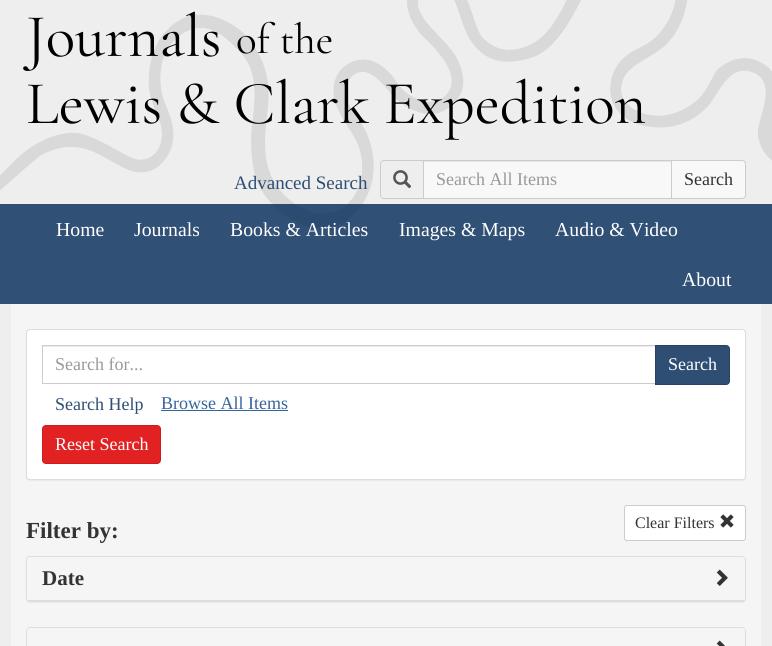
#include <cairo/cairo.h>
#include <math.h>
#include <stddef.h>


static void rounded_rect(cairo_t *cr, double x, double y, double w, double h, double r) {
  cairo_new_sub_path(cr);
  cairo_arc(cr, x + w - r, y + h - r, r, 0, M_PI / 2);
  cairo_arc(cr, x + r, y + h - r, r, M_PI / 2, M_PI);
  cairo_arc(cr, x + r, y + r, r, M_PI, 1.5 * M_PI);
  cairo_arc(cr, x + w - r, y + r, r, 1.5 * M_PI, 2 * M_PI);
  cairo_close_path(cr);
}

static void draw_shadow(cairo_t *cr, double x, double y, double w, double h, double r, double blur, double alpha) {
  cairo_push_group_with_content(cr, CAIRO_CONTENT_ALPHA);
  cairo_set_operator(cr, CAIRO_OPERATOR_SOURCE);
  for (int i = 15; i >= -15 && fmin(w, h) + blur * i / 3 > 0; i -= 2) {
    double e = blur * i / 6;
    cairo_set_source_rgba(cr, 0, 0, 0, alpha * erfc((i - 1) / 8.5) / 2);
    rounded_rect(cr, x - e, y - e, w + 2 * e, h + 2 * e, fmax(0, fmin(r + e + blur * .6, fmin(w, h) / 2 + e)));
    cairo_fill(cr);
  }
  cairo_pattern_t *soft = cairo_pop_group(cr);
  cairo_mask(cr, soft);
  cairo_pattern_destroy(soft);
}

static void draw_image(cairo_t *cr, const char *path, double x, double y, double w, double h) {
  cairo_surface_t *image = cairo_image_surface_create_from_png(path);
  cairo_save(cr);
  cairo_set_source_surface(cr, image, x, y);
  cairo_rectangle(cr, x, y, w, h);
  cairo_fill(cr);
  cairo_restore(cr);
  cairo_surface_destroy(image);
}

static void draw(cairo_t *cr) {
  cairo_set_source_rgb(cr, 238 / 255.0, 238 / 255.0, 238 / 255.0);
  cairo_paint(cr);
  draw_image(cr, "images/1.png", 0, 0, 772, 228);
  cairo_set_source_rgb(cr, 204 / 255.0, 204 / 255.0, 204 / 255.0);
  cairo_set_fill_rule(cr, CAIRO_FILL_RULE_EVEN_ODD);
  cairo_new_path(cr);
  cairo_move_to(cr, 384, 160);
  cairo_line_to(cr, 423, 160);
  cairo_line_to(cr, 423, 199);
  cairo_line_to(cr, 384, 199);
  cairo_curve_to(cr, 382, 199, 380, 197, 380, 195);
  cairo_line_to(cr, 380, 164);
  cairo_curve_to(cr, 380, 162, 382, 160, 384, 160);
  cairo_close_path(cr);
  cairo_move_to(cr, 384, 161);
  cairo_line_to(cr, 423, 161);
  cairo_line_to(cr, 423, 198);
  cairo_line_to(cr, 384, 198);
  cairo_curve_to(cr, 382, 198, 381, 197, 381, 195);
  cairo_line_to(cr, 381, 164);
  cairo_curve_to(cr, 381, 162, 382, 161, 384, 161);
  cairo_close_path(cr);
  cairo_fill(cr);
  draw_image(cr, "images/2.png", 393, 170, 19, 19);
  cairo_set_source_rgb(cr, 248 / 255.0, 248 / 255.0, 248 / 255.0);
  cairo_rectangle(cr, 424, 162, 247, 36);
  cairo_fill(cr);
  cairo_set_source_rgb(cr, 229 / 255.0, 229 / 255.0, 229 / 255.0);
  cairo_rectangle(cr, 424, 161, 247, 1);
  cairo_fill(cr);
  cairo_rectangle(cr, 423.5, 160.5, 248, 38);
  cairo_set_source_rgb(cr, 204 / 255.0, 204 / 255.0, 204 / 255.0);
  cairo_set_line_width(cr, 1);
  cairo_stroke(cr);
  cairo_set_source_rgba(cr, 1, 1, 1, 0.6);
  cairo_new_path(cr);
  cairo_move_to(cr, 671.5, 160.5);
  cairo_line_to(cr, 742, 160.5);
  cairo_curve_to(cr, 744, 160.5, 745.5, 162, 745.5, 164);
  cairo_line_to(cr, 745.5, 195);
  cairo_curve_to(cr, 745.5, 197, 744, 198.5, 742, 198.5);
  cairo_line_to(cr, 671.5, 198.5);
  cairo_close_path(cr);
  cairo_fill_preserve(cr);
  cairo_set_source_rgb(cr, 204 / 255.0, 204 / 255.0, 204 / 255.0);
  cairo_stroke(cr);
  cairo_set_source_rgb(cr, 245 / 255.0, 245 / 255.0, 245 / 255.0);
  cairo_rectangle(cr, 11, 302, 750, 344);
  cairo_fill(cr);
  cairo_set_source_rgba(cr, 0, 41 / 255.0, 86 / 255.0, 0.8);
  cairo_rectangle(cr, 0, 204, 772, 100);
  cairo_fill(cr);
  cairo_set_source_rgb(cr, 0, 0, 0);
  draw_shadow(cr, 26, 330, 720, 151, 4, 0.5, 0.05);
  cairo_set_source_rgb(cr, 1, 1, 1);
  rounded_rect(cr, 26.5, 329.5, 719, 150, 3.5);
  cairo_fill_preserve(cr);
  cairo_set_source_rgb(cr, 221 / 255.0, 221 / 255.0, 221 / 255.0);
  cairo_stroke(cr);
  cairo_set_source_rgb(cr, 236 / 255.0, 236 / 255.0, 236 / 255.0);
  cairo_rectangle(cr, 43, 346, 612, 1);
  cairo_fill(cr);
  cairo_rectangle(cr, 42.5, 345.5, 613, 38);
  cairo_set_source_rgb(cr, 204 / 255.0, 204 / 255.0, 204 / 255.0);
  cairo_stroke(cr);
  cairo_set_source_rgb(cr, 46 / 255.0, 78 / 255.0, 116 / 255.0);
  cairo_new_path(cr);
  cairo_move_to(cr, 655.5, 345.5);
  cairo_line_to(cr, 726, 345.5);
  cairo_curve_to(cr, 728, 345.5, 729.5, 347, 729.5, 349);
  cairo_line_to(cr, 729.5, 381);
  cairo_curve_to(cr, 729.5, 383, 728, 384.5, 726, 384.5);
  cairo_line_to(cr, 655.5, 384.5);
  cairo_close_path(cr);
  cairo_fill_preserve(cr);
  cairo_set_source_rgb(cr, 39 / 255.0, 66 / 255.0, 98 / 255.0);
  cairo_stroke(cr);
  cairo_set_source_rgb(cr, 54 / 255.0, 101 / 255.0, 156 / 255.0);
  cairo_rectangle(cr, 161, 410, 127, 1);
  cairo_fill(cr);
  cairo_set_source_rgb(cr, 225 / 255.0, 33 / 255.0, 34 / 255.0);
  rounded_rect(cr, 42.5, 425.5, 118, 38, 3.5);
  cairo_fill_preserve(cr);
  cairo_set_source_rgb(cr, 205 / 255.0, 28 / 255.0, 29 / 255.0);
  cairo_stroke(cr);
  cairo_set_source_rgb(cr, 1, 1, 1);
  rounded_rect(cr, 624.5, 505.5, 121, 35, 2.5);
  cairo_fill_preserve(cr);
  cairo_set_source_rgb(cr, 204 / 255.0, 204 / 255.0, 204 / 255.0);
  cairo_stroke(cr);
  draw_image(cr, "images/3.png", 720, 514, 14, 14);
  cairo_set_source_rgb(cr, 0, 0, 0);
  draw_shadow(cr, 26, 557, 720, 46, 4, 0.5, 0.05);
  rounded_rect(cr, 26.5, 556.5, 719, 45, 3.5);
  cairo_set_source_rgb(cr, 221 / 255.0, 221 / 255.0, 221 / 255.0);
  cairo_stroke(cr);
  cairo_set_source_rgb(cr, 245 / 255.0, 245 / 255.0, 245 / 255.0);
  cairo_new_path(cr);
  cairo_move_to(cr, 30, 557);
  cairo_line_to(cr, 742, 557);
  cairo_curve_to(cr, 743.5, 557, 745, 558.5, 745, 560);
  cairo_line_to(cr, 745, 601);
  cairo_line_to(cr, 27, 601);
  cairo_line_to(cr, 27, 560);
  cairo_curve_to(cr, 27, 558.5, 28.5, 557, 30, 557);
  cairo_close_path(cr);
  cairo_fill(cr);
  cairo_set_source_rgb(cr, 221 / 255.0, 221 / 255.0, 221 / 255.0);
  cairo_rectangle(cr, 27, 600, 718, 1);
  cairo_fill(cr);
  draw_image(cr, "images/4.png", 716, 569, 12, 17);
  rounded_rect(cr, 26.5, 627.5, 719, 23, 3.5);
  cairo_stroke(cr);
  cairo_set_source_rgb(cr, 245 / 255.0, 245 / 255.0, 245 / 255.0);
  cairo_new_path(cr);
  cairo_move_to(cr, 30, 628);
  cairo_line_to(cr, 742, 628);
  cairo_curve_to(cr, 743.5, 628, 745, 629.5, 745, 631);
  cairo_line_to(cr, 745, 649);
  cairo_line_to(cr, 27, 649);
  cairo_line_to(cr, 27, 631);
  cairo_curve_to(cr, 27, 629.5, 28.5, 628, 30, 628);
  cairo_close_path(cr);
  cairo_fill(cr);
  draw_image(cr, "images/5.png", 716, 640, 9, 6);
  cairo_select_font_face(cr, "Cormorant Garamond Light", CAIRO_FONT_SLANT_NORMAL, CAIRO_FONT_WEIGHT_NORMAL);
  cairo_set_font_size(cr, 61.25);
  cairo_set_source_rgb(cr, 0, 0, 0);
  cairo_move_to(cr, 26, 56);
  cairo_show_text(cr, "Journals");
  cairo_set_font_size(cr, 43);
  cairo_move_to(cr, 236, 53);
  cairo_show_text(cr, "of the");
  cairo_set_font_size(cr, 61.25);
  cairo_move_to(cr, 26, 123);
  cairo_show_text(cr, "Lewis & Clark Expedition");
  cairo_select_font_face(cr, "Liberation Serif", CAIRO_FONT_SLANT_NORMAL, CAIRO_FONT_WEIGHT_NORMAL);
  cairo_set_font_size(cr, 19);
  cairo_set_source_rgb(cr, 46 / 255.0, 78 / 255.0, 116 / 255.0);
  cairo_move_to(cr, 234, 189);
  cairo_show_text(cr, "Advanced Search");
  cairo_set_font_size(cr, 18);
  cairo_set_source_rgb(cr, 153 / 255.0, 153 / 255.0, 153 / 255.0);
  cairo_move_to(cr, 436, 185);
  cairo_show_text(cr, "Search All Items");
  cairo_set_source_rgb(cr, 51 / 255.0, 51 / 255.0, 51 / 255.0);
  cairo_move_to(cr, 684, 185);
  cairo_show_text(cr, "Search");
  cairo_set_font_size(cr, 19.75);
  cairo_set_source_rgb(cr, 1, 1, 1);
  cairo_move_to(cr, 56, 236);
  cairo_show_text(cr, "Home");
  cairo_move_to(cr, 134, 236);
  cairo_show_text(cr, "Journals");
  cairo_move_to(cr, 230, 236);
  cairo_show_text(cr, "Books & Articles");
  cairo_move_to(cr, 399, 236);
  cairo_show_text(cr, "Images & Maps");
  cairo_move_to(cr, 555, 236);
  cairo_show_text(cr, "Audio & Video");
  cairo_move_to(cr, 682, 286);
  cairo_show_text(cr, "About");
  cairo_set_font_size(cr, 18);
  cairo_set_source_rgb(cr, 153 / 255.0, 153 / 255.0, 153 / 255.0);
  cairo_move_to(cr, 55, 370);
  cairo_show_text(cr, "Search for...");
  cairo_set_source_rgb(cr, 1, 1, 1);
  cairo_move_to(cr, 668, 370);
  cairo_show_text(cr, "Search");
  cairo_set_source_rgb(cr, 46 / 255.0, 78 / 255.0, 116 / 255.0);
  cairo_move_to(cr, 55, 410);
  cairo_show_text(cr, "Search Help");
  cairo_set_source_rgb(cr, 54 / 255.0, 101 / 255.0, 156 / 255.0);
  cairo_move_to(cr, 161, 409);
  cairo_show_text(cr, "Browse All Items");
  cairo_set_source_rgb(cr, 1, 1, 1);
  cairo_move_to(cr, 55, 450);
  cairo_show_text(cr, "Reset Search");
  cairo_select_font_face(cr, "Liberation Serif", CAIRO_FONT_SLANT_NORMAL, CAIRO_FONT_WEIGHT_BOLD);
  cairo_set_font_size(cr, 23);
  cairo_set_source_rgb(cr, 51 / 255.0, 51 / 255.0, 51 / 255.0);
  cairo_move_to(cr, 26, 538);
  cairo_show_text(cr, "Filter by:");
  cairo_select_font_face(cr, "Liberation Serif", CAIRO_FONT_SLANT_NORMAL, CAIRO_FONT_WEIGHT_NORMAL);
  cairo_set_font_size(cr, 16);
  cairo_move_to(cr, 635, 528);
  cairo_show_text(cr, "Clear Filters");
  cairo_select_font_face(cr, "Liberation Serif", CAIRO_FONT_SLANT_NORMAL, CAIRO_FONT_WEIGHT_BOLD);
  cairo_set_font_size(cr, 21);
  cairo_move_to(cr, 42, 585);
  cairo_show_text(cr, "Date");
}

int main(void) {
  cairo_surface_t *surface = cairo_image_surface_create(CAIRO_FORMAT_RGB24, 772, 646);
  cairo_t *cr = cairo_create(surface);
  cairo_font_options_t *options = cairo_font_options_create();
  cairo_font_options_set_hint_metrics(options, CAIRO_HINT_METRICS_OFF);
  cairo_font_options_set_hint_style(options, CAIRO_HINT_STYLE_NONE);
  cairo_set_font_options(cr, options);
  cairo_set_miter_limit(cr, 4);
  draw(cr);
  cairo_surface_write_to_png(surface, "out.png");
  cairo_font_options_destroy(options);
  cairo_destroy(cr);
  cairo_surface_destroy(surface);
  return 0;
}
